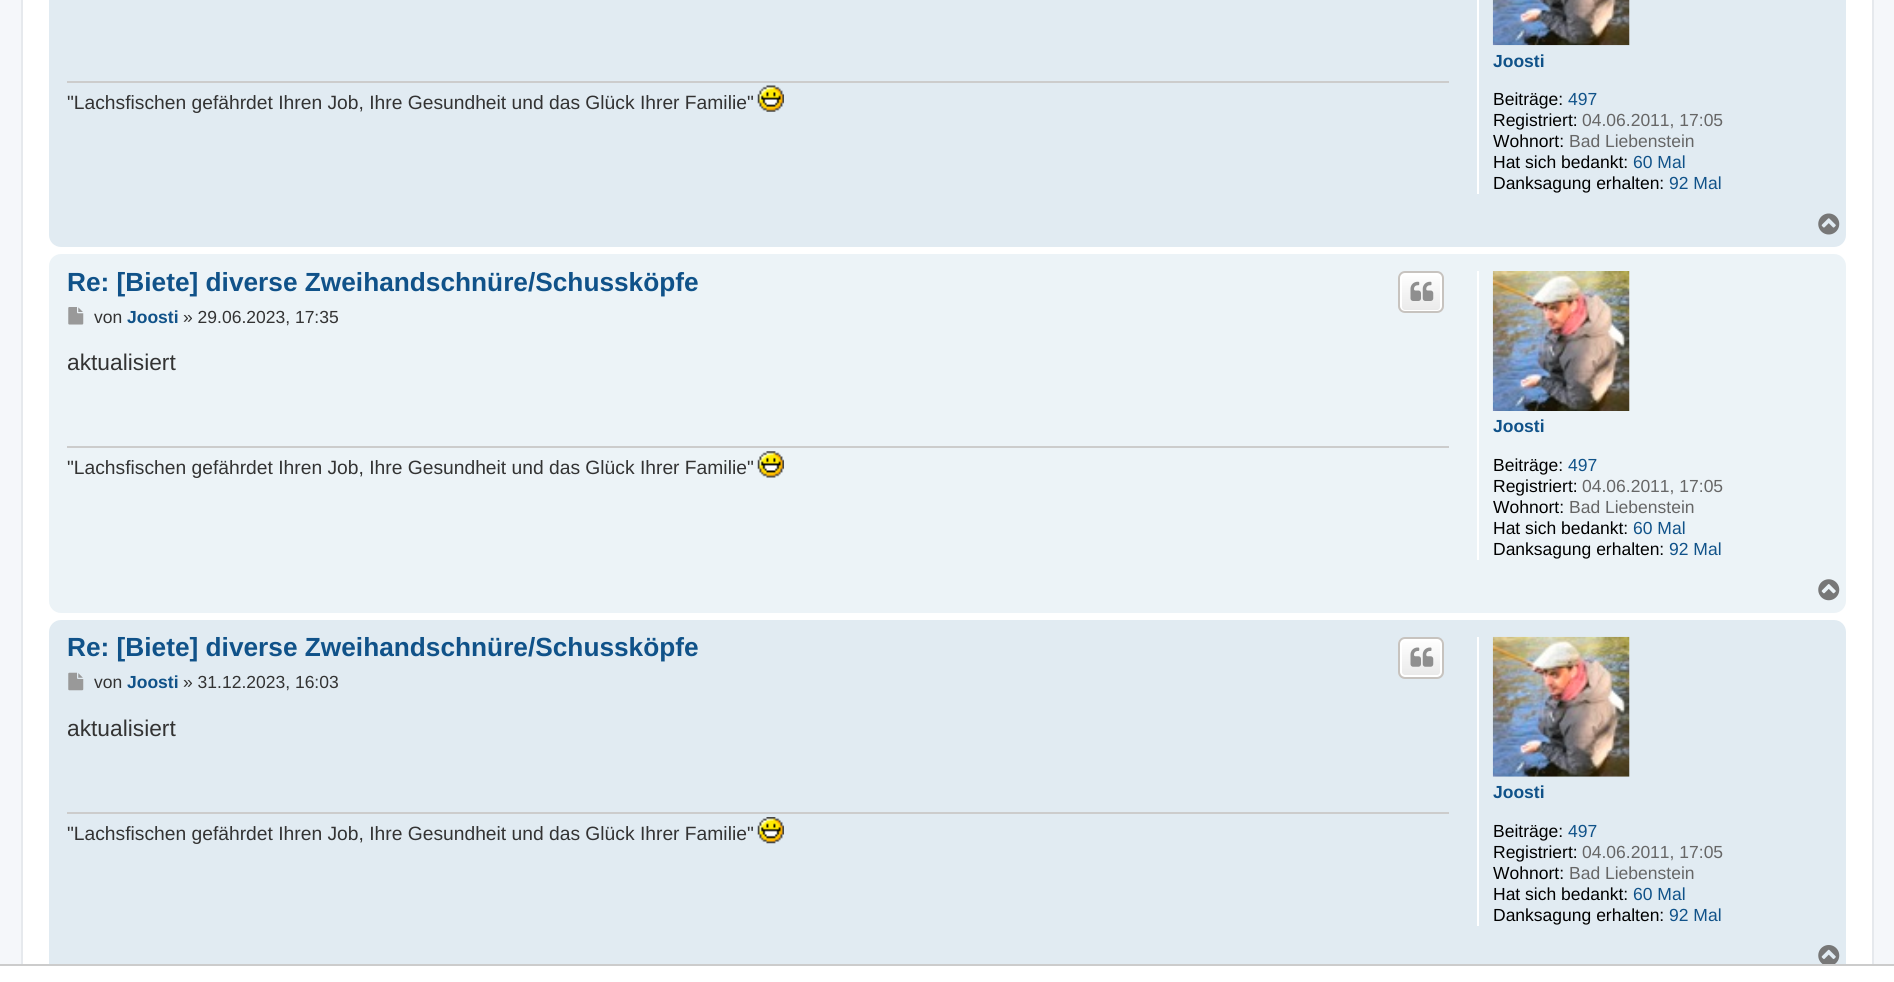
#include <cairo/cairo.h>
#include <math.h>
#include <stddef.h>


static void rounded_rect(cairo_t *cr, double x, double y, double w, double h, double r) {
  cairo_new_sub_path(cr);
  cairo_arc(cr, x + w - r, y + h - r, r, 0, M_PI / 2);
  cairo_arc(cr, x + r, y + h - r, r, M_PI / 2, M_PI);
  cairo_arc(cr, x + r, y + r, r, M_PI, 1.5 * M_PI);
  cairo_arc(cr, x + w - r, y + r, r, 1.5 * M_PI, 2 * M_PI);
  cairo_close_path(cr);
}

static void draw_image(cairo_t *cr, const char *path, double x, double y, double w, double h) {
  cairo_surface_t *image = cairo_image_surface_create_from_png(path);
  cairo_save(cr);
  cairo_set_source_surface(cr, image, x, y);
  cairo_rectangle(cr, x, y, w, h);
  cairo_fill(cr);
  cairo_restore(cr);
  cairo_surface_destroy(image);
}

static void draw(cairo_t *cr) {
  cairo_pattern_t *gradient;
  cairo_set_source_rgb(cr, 245 / 255.0, 247 / 255.0, 250 / 255.0);
  cairo_paint(cr);
  cairo_set_source_rgb(cr, 1, 1, 1);
  cairo_rectangle(cr, 23, 0, 1849, 964);
  cairo_fill(cr);
  cairo_rectangle(cr, 22, -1, 1851, 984);
  cairo_set_source_rgb(cr, 230 / 255.0, 233 / 255.0, 237 / 255.0);
  cairo_stroke(cr);
  cairo_set_source_rgb(cr, 225 / 255.0, 235 / 255.0, 242 / 255.0);
  rounded_rect(cr, 49, -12, 1797, 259, 12);
  cairo_fill(cr);
  cairo_set_source_rgb(cr, 204 / 255.0, 204 / 255.0, 204 / 255.0);
  cairo_rectangle(cr, 67, 81, 1382, 2);
  cairo_fill(cr);
  draw_image(cr, "images/1.png", 757, 85, 27, 27);
  cairo_set_source_rgb(cr, 1, 1, 1);
  cairo_rectangle(cr, 1477, 0, 2, 194);
  cairo_fill(cr);
  draw_image(cr, "images/2.png", 1492, 0, 138, 46);
  draw_image(cr, "images/3.png", 1818, 213, 22, 22);
  cairo_set_source_rgb(cr, 236 / 255.0, 243 / 255.0, 247 / 255.0);
  rounded_rect(cr, 49, 254, 1797, 359, 12);
  cairo_fill(cr);
  cairo_save(cr);
  rounded_rect(cr, 1398, 271, 46, 42, 7);
  cairo_clip(cr);
  gradient = cairo_pattern_create_linear(1421, 273, 1421, 312);
  cairo_pattern_add_color_stop_rgba(gradient, 0, 1, 1, 1, 1);
  cairo_pattern_add_color_stop_rgba(gradient, 1, 233 / 255.0, 233 / 255.0, 233 / 255.0, 1);
  cairo_set_source(cr, gradient);
  cairo_pattern_destroy(gradient);
  cairo_rectangle(cr, 1398, 273, 46, 39);
  cairo_fill(cr);
  cairo_restore(cr);
  rounded_rect(cr, 1401, 274, 40, 37, 4);
  cairo_set_source_rgb(cr, 1, 1, 1);
  cairo_stroke(cr);
  rounded_rect(cr, 1399, 272, 44, 40, 6);
  cairo_set_source_rgb(cr, 199 / 255.0, 195 / 255.0, 191 / 255.0);
  cairo_stroke(cr);
  draw_image(cr, "images/4.png", 1410, 281, 24, 20);
  draw_image(cr, "images/5.png", 68, 307, 16, 18);
  cairo_set_source_rgb(cr, 204 / 255.0, 204 / 255.0, 204 / 255.0);
  cairo_rectangle(cr, 67, 446, 1382, 2);
  cairo_fill(cr);
  draw_image(cr, "images/6.png", 757, 451, 27, 27);
  cairo_set_source_rgb(cr, 1, 1, 1);
  cairo_rectangle(cr, 1477, 271, 2, 289);
  cairo_fill(cr);
  draw_image(cr, "images/7.png", 1492, 271, 138, 140);
  draw_image(cr, "images/8.png", 1818, 579, 22, 22);
  cairo_set_source_rgb(cr, 225 / 255.0, 235 / 255.0, 242 / 255.0);
  rounded_rect(cr, 49, 620, 1797, 358, 12);
  cairo_fill(cr);
  cairo_save(cr);
  rounded_rect(cr, 1398, 637, 46, 42, 7);
  cairo_clip(cr);
  gradient = cairo_pattern_create_linear(1421, 639, 1421, 677);
  cairo_pattern_add_color_stop_rgba(gradient, 0, 1, 1, 1, 1);
  cairo_pattern_add_color_stop_rgba(gradient, 1, 233 / 255.0, 233 / 255.0, 233 / 255.0, 1);
  cairo_set_source(cr, gradient);
  cairo_pattern_destroy(gradient);
  cairo_rectangle(cr, 1398, 639, 46, 38);
  cairo_fill(cr);
  cairo_restore(cr);
  rounded_rect(cr, 1401, 640, 40, 36, 4);
  cairo_set_source_rgb(cr, 1, 1, 1);
  cairo_stroke(cr);
  rounded_rect(cr, 1399, 638, 44, 40, 6);
  cairo_set_source_rgb(cr, 199 / 255.0, 195 / 255.0, 191 / 255.0);
  cairo_stroke(cr);
  draw_image(cr, "images/9.png", 1410, 647, 24, 20);
  draw_image(cr, "images/10.png", 68, 672, 16, 19);
  cairo_set_source_rgb(cr, 204 / 255.0, 204 / 255.0, 204 / 255.0);
  cairo_rectangle(cr, 67, 812, 1382, 2);
  cairo_fill(cr);
  draw_image(cr, "images/11.png", 757, 817, 27, 27);
  cairo_set_source_rgb(cr, 1, 1, 1);
  cairo_rectangle(cr, 1477, 637, 2, 289);
  cairo_fill(cr);
  draw_image(cr, "images/12.png", 1492, 636, 138, 141);
  draw_image(cr, "images/13.png", 1818, 945, 22, 19);
  cairo_rectangle(cr, 0, 966, 1894, 16);
  cairo_fill(cr);
  cairo_set_source_rgb(cr, 204 / 255.0, 204 / 255.0, 204 / 255.0);
  cairo_rectangle(cr, 0, 964, 1894, 2);
  cairo_fill(cr);
  cairo_select_font_face(cr, "Liberation Sans", CAIRO_FONT_SLANT_NORMAL, CAIRO_FONT_WEIGHT_NORMAL);
  cairo_set_font_size(cr, 19.25);
  cairo_set_source_rgb(cr, 51 / 255.0, 51 / 255.0, 51 / 255.0);
  cairo_move_to(cr, 67, 109);
  cairo_show_text(cr, "\"Lachsfischen gefährdet Ihren Job, Ihre Gesundheit und das Glück Ihrer Familie\"");
  cairo_select_font_face(cr, "Liberation Sans", CAIRO_FONT_SLANT_NORMAL, CAIRO_FONT_WEIGHT_BOLD);
  cairo_set_font_size(cr, 17.5);
  cairo_set_source_rgb(cr, 16 / 255.0, 82 / 255.0, 137 / 255.0);
  cairo_move_to(cr, 1493, 67);
  cairo_show_text(cr, "Joosti");
  cairo_select_font_face(cr, "Liberation Sans", CAIRO_FONT_SLANT_NORMAL, CAIRO_FONT_WEIGHT_NORMAL);
  cairo_set_source_rgb(cr, 0, 0, 0);
  cairo_move_to(cr, 1493, 105);
  cairo_show_text(cr, "Beiträge:");
  cairo_set_source_rgb(cr, 16 / 255.0, 82 / 255.0, 137 / 255.0);
  cairo_move_to(cr, 1568, 105);
  cairo_show_text(cr, "497");
  cairo_set_source_rgb(cr, 0, 0, 0);
  cairo_move_to(cr, 1493, 126);
  cairo_show_text(cr, "Registriert:");
  cairo_set_source_rgb(cr, 102 / 255.0, 102 / 255.0, 102 / 255.0);
  cairo_move_to(cr, 1582, 126);
  cairo_show_text(cr, "04.06.2011, 17:05");
  cairo_set_source_rgb(cr, 0, 0, 0);
  cairo_move_to(cr, 1493, 147);
  cairo_show_text(cr, "Wohnort:");
  cairo_set_source_rgb(cr, 102 / 255.0, 102 / 255.0, 102 / 255.0);
  cairo_move_to(cr, 1569, 147);
  cairo_show_text(cr, "Bad Liebenstein");
  cairo_set_source_rgb(cr, 0, 0, 0);
  cairo_move_to(cr, 1493, 168);
  cairo_show_text(cr, "Hat sich bedankt:");
  cairo_set_source_rgb(cr, 16 / 255.0, 82 / 255.0, 137 / 255.0);
  cairo_move_to(cr, 1633, 168);
  cairo_show_text(cr, "60 Mal");
  cairo_set_source_rgb(cr, 0, 0, 0);
  cairo_move_to(cr, 1493, 189);
  cairo_show_text(cr, "Danksagung erhalten:");
  cairo_set_source_rgb(cr, 16 / 255.0, 82 / 255.0, 137 / 255.0);
  cairo_move_to(cr, 1669, 189);
  cairo_show_text(cr, "92 Mal");
  cairo_select_font_face(cr, "Liberation Sans", CAIRO_FONT_SLANT_NORMAL, CAIRO_FONT_WEIGHT_BOLD);
  cairo_set_font_size(cr, 26.25);
  cairo_move_to(cr, 67, 291);
  cairo_show_text(cr, "Re: [Biete] diverse Zweihandschnüre/Schussköpfe");
  cairo_select_font_face(cr, "Liberation Sans", CAIRO_FONT_SLANT_NORMAL, CAIRO_FONT_WEIGHT_NORMAL);
  cairo_set_font_size(cr, 17.5);
  cairo_set_source_rgb(cr, 51 / 255.0, 51 / 255.0, 51 / 255.0);
  cairo_move_to(cr, 94, 323);
  cairo_show_text(cr, "von");
  cairo_select_font_face(cr, "Liberation Sans", CAIRO_FONT_SLANT_NORMAL, CAIRO_FONT_WEIGHT_BOLD);
  cairo_set_source_rgb(cr, 16 / 255.0, 82 / 255.0, 137 / 255.0);
  cairo_move_to(cr, 127, 323);
  cairo_show_text(cr, "Joosti");
  cairo_select_font_face(cr, "Liberation Sans", CAIRO_FONT_SLANT_NORMAL, CAIRO_FONT_WEIGHT_NORMAL);
  cairo_set_source_rgb(cr, 51 / 255.0, 51 / 255.0, 51 / 255.0);
  cairo_move_to(cr, 183, 323);
  cairo_show_text(cr, "» 29.06.2023, 17:35");
  cairo_set_font_size(cr, 22.75);
  cairo_move_to(cr, 67, 370);
  cairo_show_text(cr, "aktualisiert");
  cairo_set_font_size(cr, 19.25);
  cairo_move_to(cr, 67, 474);
  cairo_show_text(cr, "\"Lachsfischen gefährdet Ihren Job, Ihre Gesundheit und das Glück Ihrer Familie\"");
  cairo_select_font_face(cr, "Liberation Sans", CAIRO_FONT_SLANT_NORMAL, CAIRO_FONT_WEIGHT_BOLD);
  cairo_set_font_size(cr, 17.5);
  cairo_set_source_rgb(cr, 16 / 255.0, 82 / 255.0, 137 / 255.0);
  cairo_move_to(cr, 1493, 432);
  cairo_show_text(cr, "Joosti");
  cairo_select_font_face(cr, "Liberation Sans", CAIRO_FONT_SLANT_NORMAL, CAIRO_FONT_WEIGHT_NORMAL);
  cairo_set_source_rgb(cr, 0, 0, 0);
  cairo_move_to(cr, 1493, 471);
  cairo_show_text(cr, "Beiträge:");
  cairo_set_source_rgb(cr, 16 / 255.0, 82 / 255.0, 137 / 255.0);
  cairo_move_to(cr, 1568, 471);
  cairo_show_text(cr, "497");
  cairo_set_source_rgb(cr, 0, 0, 0);
  cairo_move_to(cr, 1493, 492);
  cairo_show_text(cr, "Registriert:");
  cairo_set_source_rgb(cr, 102 / 255.0, 102 / 255.0, 102 / 255.0);
  cairo_move_to(cr, 1582, 492);
  cairo_show_text(cr, "04.06.2011, 17:05");
  cairo_set_source_rgb(cr, 0, 0, 0);
  cairo_move_to(cr, 1493, 513);
  cairo_show_text(cr, "Wohnort:");
  cairo_set_source_rgb(cr, 102 / 255.0, 102 / 255.0, 102 / 255.0);
  cairo_move_to(cr, 1569, 513);
  cairo_show_text(cr, "Bad Liebenstein");
  cairo_set_source_rgb(cr, 0, 0, 0);
  cairo_move_to(cr, 1493, 534);
  cairo_show_text(cr, "Hat sich bedankt:");
  cairo_set_source_rgb(cr, 16 / 255.0, 82 / 255.0, 137 / 255.0);
  cairo_move_to(cr, 1633, 534);
  cairo_show_text(cr, "60 Mal");
  cairo_set_source_rgb(cr, 0, 0, 0);
  cairo_move_to(cr, 1493, 555);
  cairo_show_text(cr, "Danksagung erhalten:");
  cairo_set_source_rgb(cr, 16 / 255.0, 82 / 255.0, 137 / 255.0);
  cairo_move_to(cr, 1669, 555);
  cairo_show_text(cr, "92 Mal");
  cairo_select_font_face(cr, "Liberation Sans", CAIRO_FONT_SLANT_NORMAL, CAIRO_FONT_WEIGHT_BOLD);
  cairo_set_font_size(cr, 26.25);
  cairo_move_to(cr, 67, 656);
  cairo_show_text(cr, "Re: [Biete] diverse Zweihandschnüre/Schussköpfe");
  cairo_select_font_face(cr, "Liberation Sans", CAIRO_FONT_SLANT_NORMAL, CAIRO_FONT_WEIGHT_NORMAL);
  cairo_set_font_size(cr, 17.5);
  cairo_set_source_rgb(cr, 51 / 255.0, 51 / 255.0, 51 / 255.0);
  cairo_move_to(cr, 94, 688);
  cairo_show_text(cr, "von");
  cairo_select_font_face(cr, "Liberation Sans", CAIRO_FONT_SLANT_NORMAL, CAIRO_FONT_WEIGHT_BOLD);
  cairo_set_source_rgb(cr, 16 / 255.0, 82 / 255.0, 137 / 255.0);
  cairo_move_to(cr, 127, 688);
  cairo_show_text(cr, "Joosti");
  cairo_select_font_face(cr, "Liberation Sans", CAIRO_FONT_SLANT_NORMAL, CAIRO_FONT_WEIGHT_NORMAL);
  cairo_set_source_rgb(cr, 51 / 255.0, 51 / 255.0, 51 / 255.0);
  cairo_move_to(cr, 183, 688);
  cairo_show_text(cr, "» 31.12.2023, 16:03");
  cairo_set_font_size(cr, 22.75);
  cairo_move_to(cr, 67, 736);
  cairo_show_text(cr, "aktualisiert");
  cairo_set_font_size(cr, 19.25);
  cairo_move_to(cr, 67, 840);
  cairo_show_text(cr, "\"Lachsfischen gefährdet Ihren Job, Ihre Gesundheit und das Glück Ihrer Familie\"");
  cairo_select_font_face(cr, "Liberation Sans", CAIRO_FONT_SLANT_NORMAL, CAIRO_FONT_WEIGHT_BOLD);
  cairo_set_font_size(cr, 17.5);
  cairo_set_source_rgb(cr, 16 / 255.0, 82 / 255.0, 137 / 255.0);
  cairo_move_to(cr, 1493, 798);
  cairo_show_text(cr, "Joosti");
  cairo_select_font_face(cr, "Liberation Sans", CAIRO_FONT_SLANT_NORMAL, CAIRO_FONT_WEIGHT_NORMAL);
  cairo_set_source_rgb(cr, 0, 0, 0);
  cairo_move_to(cr, 1493, 837);
  cairo_show_text(cr, "Beiträge:");
  cairo_set_source_rgb(cr, 16 / 255.0, 82 / 255.0, 137 / 255.0);
  cairo_move_to(cr, 1568, 837);
  cairo_show_text(cr, "497");
  cairo_set_source_rgb(cr, 0, 0, 0);
  cairo_move_to(cr, 1493, 858);
  cairo_show_text(cr, "Registriert:");
  cairo_set_source_rgb(cr, 102 / 255.0, 102 / 255.0, 102 / 255.0);
  cairo_move_to(cr, 1582, 858);
  cairo_show_text(cr, "04.06.2011, 17:05");
  cairo_set_source_rgb(cr, 0, 0, 0);
  cairo_move_to(cr, 1493, 879);
  cairo_show_text(cr, "Wohnort:");
  cairo_set_source_rgb(cr, 102 / 255.0, 102 / 255.0, 102 / 255.0);
  cairo_move_to(cr, 1569, 879);
  cairo_show_text(cr, "Bad Liebenstein");
  cairo_set_source_rgb(cr, 0, 0, 0);
  cairo_move_to(cr, 1493, 900);
  cairo_show_text(cr, "Hat sich bedankt:");
  cairo_set_source_rgb(cr, 16 / 255.0, 82 / 255.0, 137 / 255.0);
  cairo_move_to(cr, 1633, 900);
  cairo_show_text(cr, "60 Mal");
  cairo_set_source_rgb(cr, 0, 0, 0);
  cairo_move_to(cr, 1493, 921);
  cairo_show_text(cr, "Danksagung erhalten:");
  cairo_set_source_rgb(cr, 16 / 255.0, 82 / 255.0, 137 / 255.0);
  cairo_move_to(cr, 1669, 921);
  cairo_show_text(cr, "92 Mal");
}

int main(void) {
  cairo_surface_t *surface = cairo_image_surface_create(CAIRO_FORMAT_RGB24, 1894, 982);
  cairo_t *cr = cairo_create(surface);
  cairo_font_options_t *options = cairo_font_options_create();
  cairo_font_options_set_hint_metrics(options, CAIRO_HINT_METRICS_OFF);
  cairo_font_options_set_hint_style(options, CAIRO_HINT_STYLE_NONE);
  cairo_set_font_options(cr, options);
  cairo_set_miter_limit(cr, 4);
  draw(cr);
  cairo_surface_write_to_png(surface, "out.png");
  cairo_font_options_destroy(options);
  cairo_destroy(cr);
  cairo_surface_destroy(surface);
  return 0;
}
